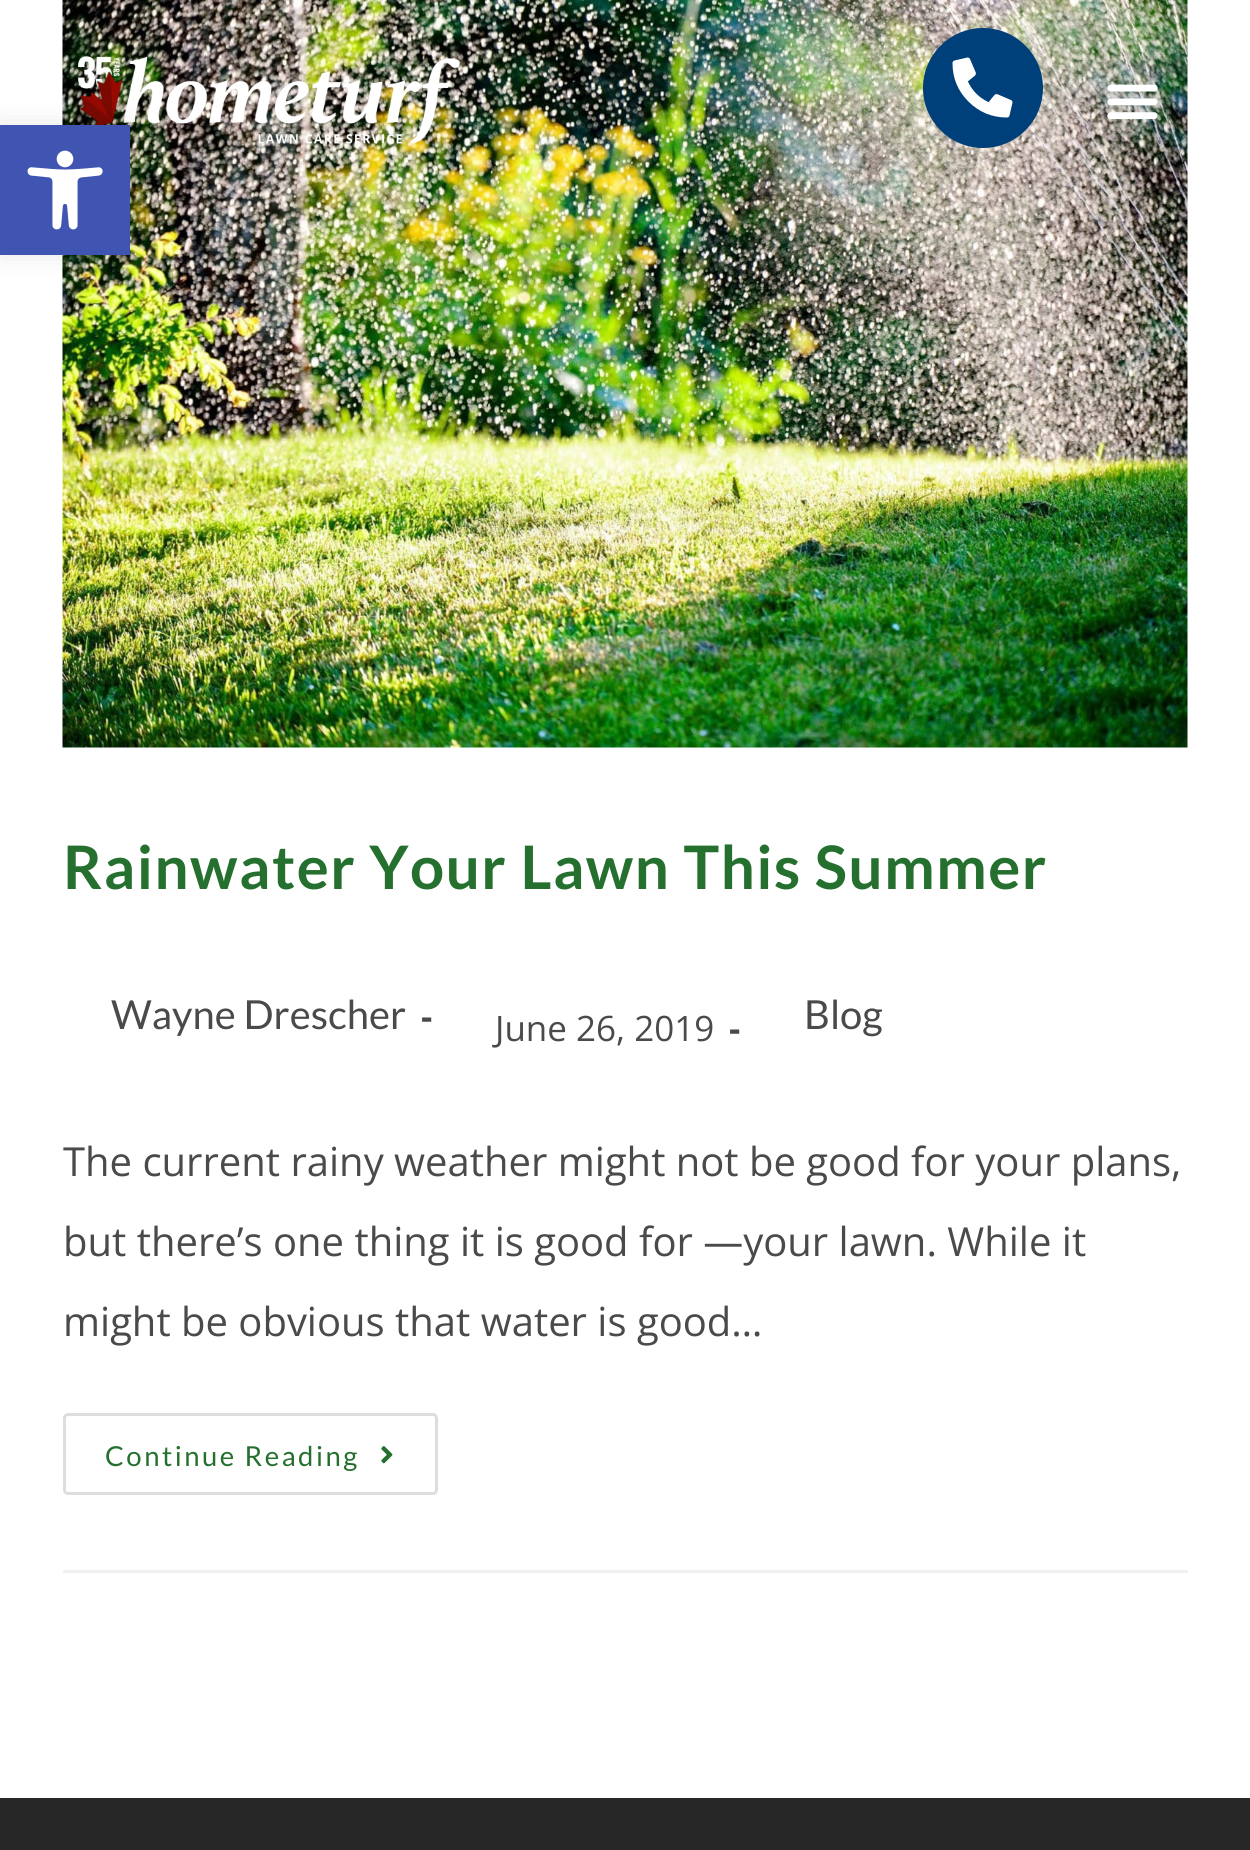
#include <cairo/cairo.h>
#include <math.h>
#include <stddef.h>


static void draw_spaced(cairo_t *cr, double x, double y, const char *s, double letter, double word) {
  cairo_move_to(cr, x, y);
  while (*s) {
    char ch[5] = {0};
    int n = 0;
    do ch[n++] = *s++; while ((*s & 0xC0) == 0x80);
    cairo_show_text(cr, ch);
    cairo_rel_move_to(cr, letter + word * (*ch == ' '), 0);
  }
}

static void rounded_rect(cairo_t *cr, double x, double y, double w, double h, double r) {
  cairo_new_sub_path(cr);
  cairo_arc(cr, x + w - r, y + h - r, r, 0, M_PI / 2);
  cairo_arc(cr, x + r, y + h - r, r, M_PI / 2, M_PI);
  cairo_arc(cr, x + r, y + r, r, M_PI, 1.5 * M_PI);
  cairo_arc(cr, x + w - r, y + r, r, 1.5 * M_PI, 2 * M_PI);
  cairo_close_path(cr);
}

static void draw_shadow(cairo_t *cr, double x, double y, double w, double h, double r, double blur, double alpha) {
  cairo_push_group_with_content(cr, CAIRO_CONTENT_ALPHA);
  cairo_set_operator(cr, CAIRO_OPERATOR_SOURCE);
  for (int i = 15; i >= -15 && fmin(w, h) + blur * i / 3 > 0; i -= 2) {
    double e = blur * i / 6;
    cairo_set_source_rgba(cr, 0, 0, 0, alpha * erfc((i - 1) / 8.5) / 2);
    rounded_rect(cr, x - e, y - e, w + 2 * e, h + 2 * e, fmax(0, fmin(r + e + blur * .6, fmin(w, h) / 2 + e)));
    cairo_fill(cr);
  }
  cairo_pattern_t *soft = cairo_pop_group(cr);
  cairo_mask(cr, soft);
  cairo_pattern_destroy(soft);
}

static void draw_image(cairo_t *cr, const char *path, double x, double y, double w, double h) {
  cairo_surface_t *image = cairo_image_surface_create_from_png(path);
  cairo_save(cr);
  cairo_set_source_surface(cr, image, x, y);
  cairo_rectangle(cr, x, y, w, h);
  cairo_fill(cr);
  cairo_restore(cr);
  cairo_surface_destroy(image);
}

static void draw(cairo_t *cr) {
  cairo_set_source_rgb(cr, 1, 1, 1);
  cairo_paint(cr);
  draw_image(cr, "images/5.png", 62, 0, 1126, 748);
  draw_image(cr, "images/2.png", 77, 56, 384, 88);
  cairo_set_source_rgb(cr, 0, 0, 0);
  draw_shadow(cr, 0, 125, 130, 130, 0, 12.5, 0.1);
  cairo_set_source_rgb(cr, 64 / 255.0, 84 / 255.0, 178 / 255.0);
  cairo_rectangle(cr, 0, 125, 130, 130);
  cairo_fill(cr);
  draw_image(cr, "images/1.png", 27, 150, 76, 80);
  cairo_set_source_rgb(cr, 0, 64 / 255.0, 122 / 255.0);
  cairo_arc(cr, 983, 88, 60, 0, 2 * M_PI);
  cairo_fill(cr);
  draw_image(cr, "images/3.png", 952, 57, 61, 61);
  draw_image(cr, "images/4.png", 1107, 84, 51, 36);
  cairo_set_source_rgb(cr, 241 / 255.0, 241 / 255.0, 241 / 255.0);
  cairo_rectangle(cr, 63, 1570, 1125, 3);
  cairo_fill(cr);
  rounded_rect(cr, 64.5, 1414.5, 372, 79, 3.5);
  cairo_set_source_rgb(cr, 221 / 255.0, 221 / 255.0, 221 / 255.0);
  cairo_set_line_width(cr, 3);
  cairo_stroke(cr);
  draw_image(cr, "images/6.png", 381, 1446, 12, 18);
  cairo_set_source_rgb(cr, 39 / 255.0, 39 / 255.0, 39 / 255.0);
  cairo_rectangle(cr, 0, 1798, 1250, 52);
  cairo_fill(cr);
  cairo_select_font_face(cr, "Lato", CAIRO_FONT_SLANT_NORMAL, CAIRO_FONT_WEIGHT_BOLD);
  cairo_set_font_size(cr, 60);
  cairo_set_source_rgb(cr, 37 / 255.0, 112 / 255.0, 46 / 255.0);
  draw_spaced(cr, 63, 889, "Rainwater Your Lawn This Summer", 1.5, 0);
  cairo_select_font_face(cr, "Lato", CAIRO_FONT_SLANT_NORMAL, CAIRO_FONT_WEIGHT_NORMAL);
  cairo_set_font_size(cr, 40);
  cairo_set_source_rgb(cr, 74 / 255.0, 74 / 255.0, 74 / 255.0);
  cairo_move_to(cr, 111, 1029);
  cairo_show_text(cr, "Wayne Drescher");
  cairo_select_font_face(cr, "Open Sans", CAIRO_FONT_SLANT_NORMAL, CAIRO_FONT_WEIGHT_BOLD);
  cairo_set_font_size(cr, 35);
  cairo_move_to(cr, 421, 1029);
  cairo_show_text(cr, "-");
  cairo_select_font_face(cr, "Open Sans", CAIRO_FONT_SLANT_NORMAL, CAIRO_FONT_WEIGHT_NORMAL);
  cairo_move_to(cr, 495, 1041);
  cairo_show_text(cr, "June 26, 2019");
  cairo_select_font_face(cr, "Open Sans", CAIRO_FONT_SLANT_NORMAL, CAIRO_FONT_WEIGHT_BOLD);
  cairo_move_to(cr, 729, 1041);
  cairo_show_text(cr, "-");
  cairo_select_font_face(cr, "Lato", CAIRO_FONT_SLANT_NORMAL, CAIRO_FONT_WEIGHT_NORMAL);
  cairo_set_font_size(cr, 40);
  cairo_move_to(cr, 804, 1029);
  cairo_show_text(cr, "Blog");
  cairo_select_font_face(cr, "Open Sans", CAIRO_FONT_SLANT_NORMAL, CAIRO_FONT_WEIGHT_NORMAL);
  cairo_move_to(cr, 63, 1176);
  cairo_show_text(cr, "The current rainy weather might not be good for your plans,");
  cairo_move_to(cr, 63, 1256);
  cairo_show_text(cr, "but there’s one thing it is good for —your lawn. While it");
  cairo_move_to(cr, 63, 1336);
  cairo_show_text(cr, "might be obvious that water is good…");
  cairo_select_font_face(cr, "Lato", CAIRO_FONT_SLANT_NORMAL, CAIRO_FONT_WEIGHT_NORMAL);
  cairo_set_font_size(cr, 27.5);
  cairo_set_source_rgb(cr, 37 / 255.0, 112 / 255.0, 46 / 255.0);
  draw_spaced(cr, 105, 1466, "Continue Reading", 2.5, 0);
}

int main(void) {
  cairo_surface_t *surface = cairo_image_surface_create(CAIRO_FORMAT_RGB24, 1250, 1850);
  cairo_t *cr = cairo_create(surface);
  cairo_font_options_t *options = cairo_font_options_create();
  cairo_font_options_set_hint_metrics(options, CAIRO_HINT_METRICS_OFF);
  cairo_font_options_set_hint_style(options, CAIRO_HINT_STYLE_NONE);
  cairo_set_font_options(cr, options);
  cairo_set_miter_limit(cr, 4);
  draw(cr);
  cairo_surface_write_to_png(surface, "out.png");
  cairo_font_options_destroy(options);
  cairo_destroy(cr);
  cairo_surface_destroy(surface);
  return 0;
}
